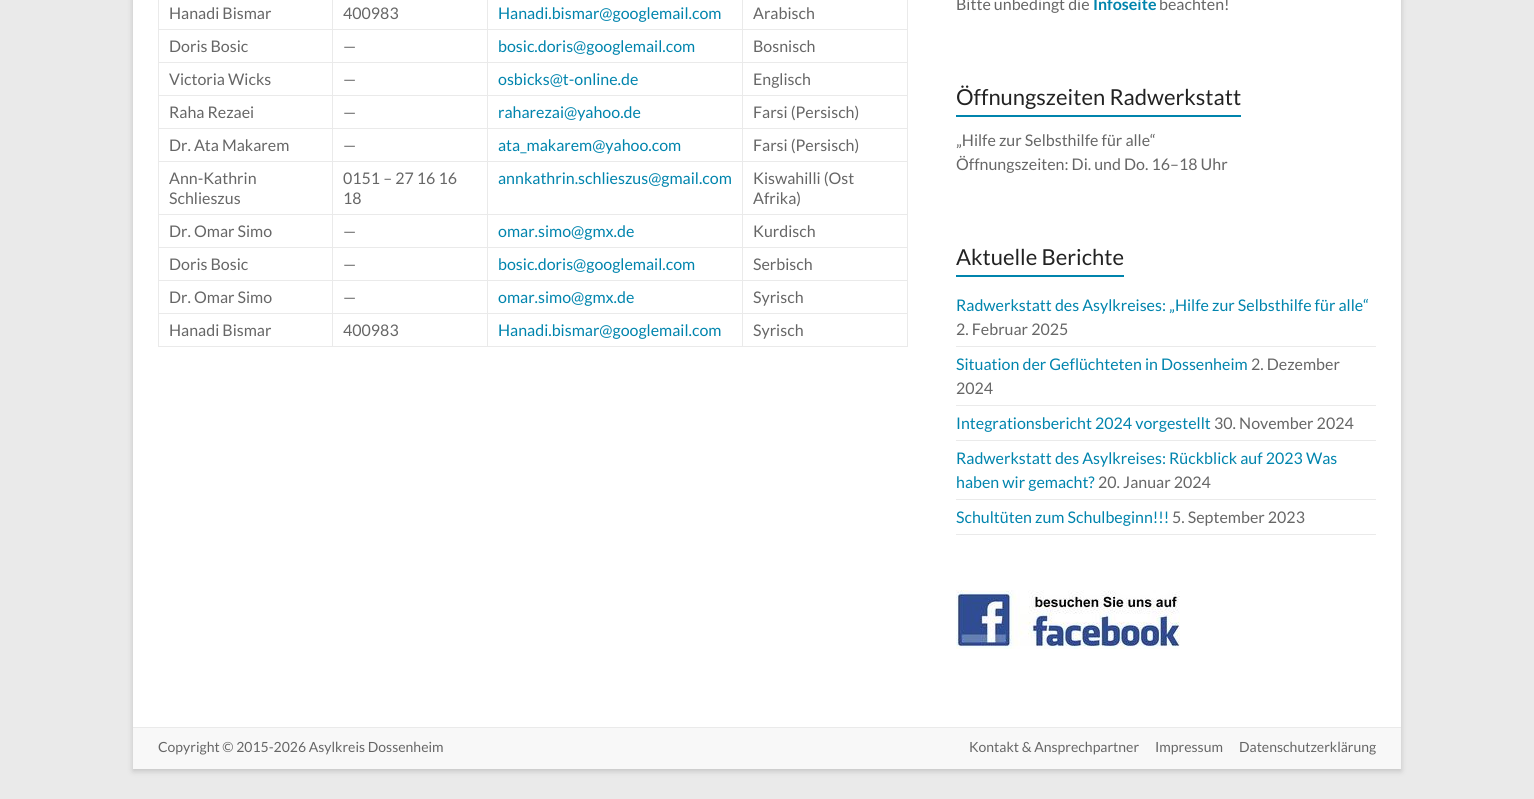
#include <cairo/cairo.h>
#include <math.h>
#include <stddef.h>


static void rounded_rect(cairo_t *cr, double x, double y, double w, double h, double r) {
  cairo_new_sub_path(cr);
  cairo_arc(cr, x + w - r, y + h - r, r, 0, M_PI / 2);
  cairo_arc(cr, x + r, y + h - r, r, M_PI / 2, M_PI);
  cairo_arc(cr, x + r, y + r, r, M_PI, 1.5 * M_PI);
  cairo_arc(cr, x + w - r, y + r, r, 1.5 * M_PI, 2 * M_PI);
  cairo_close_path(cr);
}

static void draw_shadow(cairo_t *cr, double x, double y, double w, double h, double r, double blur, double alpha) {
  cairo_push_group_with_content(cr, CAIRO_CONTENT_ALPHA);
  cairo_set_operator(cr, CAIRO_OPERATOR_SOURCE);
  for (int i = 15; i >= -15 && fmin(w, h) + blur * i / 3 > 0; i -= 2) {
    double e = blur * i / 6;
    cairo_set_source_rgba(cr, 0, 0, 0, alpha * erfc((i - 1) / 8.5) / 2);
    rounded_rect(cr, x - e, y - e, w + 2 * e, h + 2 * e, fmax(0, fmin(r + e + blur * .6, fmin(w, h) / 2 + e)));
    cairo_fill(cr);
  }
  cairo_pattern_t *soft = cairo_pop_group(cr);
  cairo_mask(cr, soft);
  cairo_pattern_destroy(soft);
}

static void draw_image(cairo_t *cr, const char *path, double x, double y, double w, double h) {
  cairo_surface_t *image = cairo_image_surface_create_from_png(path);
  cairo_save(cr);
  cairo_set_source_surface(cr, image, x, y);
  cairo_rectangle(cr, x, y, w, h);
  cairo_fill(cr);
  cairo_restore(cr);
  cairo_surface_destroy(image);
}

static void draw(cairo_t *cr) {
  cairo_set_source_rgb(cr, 234 / 255.0, 234 / 255.0, 234 / 255.0);
  cairo_paint(cr);
  cairo_set_source_rgb(cr, 100 / 255.0, 100 / 255.0, 100 / 255.0);
  draw_shadow(cr, 133, -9, 1268, 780, 0, 3, 0.3);
  cairo_set_source_rgb(cr, 1, 1, 1);
  cairo_rectangle(cr, 133, 0, 1268, 727);
  cairo_fill(cr);
  cairo_set_source_rgb(cr, 234 / 255.0, 234 / 255.0, 234 / 255.0);
  cairo_rectangle(cr, 742, 29, 166, 1);
  cairo_fill(cr);
  cairo_rectangle(cr, 742, 62, 166, 1);
  cairo_fill(cr);
  cairo_rectangle(cr, 742, 95, 166, 1);
  cairo_fill(cr);
  cairo_rectangle(cr, 742, 128, 166, 1);
  cairo_fill(cr);
  cairo_rectangle(cr, 742, 161, 166, 1);
  cairo_fill(cr);
  cairo_rectangle(cr, 742, 214, 166, 1);
  cairo_fill(cr);
  cairo_rectangle(cr, 742, 247, 166, 1);
  cairo_fill(cr);
  cairo_rectangle(cr, 742, 280, 166, 1);
  cairo_fill(cr);
  cairo_rectangle(cr, 742, 313, 166, 1);
  cairo_fill(cr);
  cairo_rectangle(cr, 907, 313, 1, 34);
  cairo_fill(cr);
  cairo_rectangle(cr, 742, 346, 166, 1);
  cairo_fill(cr);
  cairo_rectangle(cr, 742, 313, 1, 34);
  cairo_fill(cr);
  cairo_rectangle(cr, 487, 313, 256, 1);
  cairo_fill(cr);
  cairo_rectangle(cr, 742, 280, 1, 34);
  cairo_fill(cr);
  cairo_rectangle(cr, 487, 280, 256, 1);
  cairo_fill(cr);
  cairo_rectangle(cr, 742, 247, 1, 34);
  cairo_fill(cr);
  cairo_rectangle(cr, 487, 247, 256, 1);
  cairo_fill(cr);
  cairo_rectangle(cr, 742, 214, 1, 34);
  cairo_fill(cr);
  cairo_rectangle(cr, 487, 214, 256, 1);
  cairo_fill(cr);
  cairo_rectangle(cr, 742, 161, 1, 54);
  cairo_fill(cr);
  cairo_rectangle(cr, 487, 161, 256, 1);
  cairo_fill(cr);
  cairo_rectangle(cr, 742, 128, 1, 34);
  cairo_fill(cr);
  cairo_rectangle(cr, 487, 128, 256, 1);
  cairo_fill(cr);
  cairo_rectangle(cr, 742, 95, 1, 34);
  cairo_fill(cr);
  cairo_rectangle(cr, 487, 95, 256, 1);
  cairo_fill(cr);
  cairo_rectangle(cr, 742, 62, 1, 34);
  cairo_fill(cr);
  cairo_rectangle(cr, 487, 62, 256, 1);
  cairo_fill(cr);
  cairo_rectangle(cr, 742, 29, 1, 34);
  cairo_fill(cr);
  cairo_rectangle(cr, 487, 29, 256, 1);
  cairo_fill(cr);
  cairo_rectangle(cr, 487, 346, 256, 1);
  cairo_fill(cr);
  cairo_rectangle(cr, 487, 313, 1, 34);
  cairo_fill(cr);
  cairo_rectangle(cr, 332, 313, 156, 1);
  cairo_fill(cr);
  cairo_rectangle(cr, 487, 280, 1, 34);
  cairo_fill(cr);
  cairo_rectangle(cr, 332, 280, 156, 1);
  cairo_fill(cr);
  cairo_rectangle(cr, 487, 247, 1, 34);
  cairo_fill(cr);
  cairo_rectangle(cr, 332, 247, 156, 1);
  cairo_fill(cr);
  cairo_rectangle(cr, 487, 214, 1, 34);
  cairo_fill(cr);
  cairo_rectangle(cr, 332, 214, 156, 1);
  cairo_fill(cr);
  cairo_rectangle(cr, 487, 161, 1, 54);
  cairo_fill(cr);
  cairo_rectangle(cr, 332, 161, 156, 1);
  cairo_fill(cr);
  cairo_rectangle(cr, 487, 128, 1, 34);
  cairo_fill(cr);
  cairo_rectangle(cr, 332, 128, 156, 1);
  cairo_fill(cr);
  cairo_rectangle(cr, 487, 95, 1, 34);
  cairo_fill(cr);
  cairo_rectangle(cr, 332, 95, 156, 1);
  cairo_fill(cr);
  cairo_rectangle(cr, 487, 62, 1, 34);
  cairo_fill(cr);
  cairo_rectangle(cr, 332, 62, 156, 1);
  cairo_fill(cr);
  cairo_rectangle(cr, 487, 29, 1, 34);
  cairo_fill(cr);
  cairo_rectangle(cr, 332, 29, 156, 1);
  cairo_fill(cr);
  cairo_rectangle(cr, 332, 346, 156, 1);
  cairo_fill(cr);
  cairo_rectangle(cr, 332, 313, 1, 34);
  cairo_fill(cr);
  cairo_rectangle(cr, 158, 313, 175, 1);
  cairo_fill(cr);
  cairo_rectangle(cr, 332, 280, 1, 34);
  cairo_fill(cr);
  cairo_rectangle(cr, 158, 280, 175, 1);
  cairo_fill(cr);
  cairo_rectangle(cr, 332, 247, 1, 34);
  cairo_fill(cr);
  cairo_rectangle(cr, 158, 247, 175, 1);
  cairo_fill(cr);
  cairo_rectangle(cr, 332, 214, 1, 34);
  cairo_fill(cr);
  cairo_rectangle(cr, 158, 214, 175, 1);
  cairo_fill(cr);
  cairo_rectangle(cr, 332, 161, 1, 54);
  cairo_fill(cr);
  cairo_rectangle(cr, 158, 161, 175, 1);
  cairo_fill(cr);
  cairo_rectangle(cr, 332, 128, 1, 34);
  cairo_fill(cr);
  cairo_rectangle(cr, 158, 128, 175, 1);
  cairo_fill(cr);
  cairo_rectangle(cr, 332, 95, 1, 34);
  cairo_fill(cr);
  cairo_rectangle(cr, 158, 95, 175, 1);
  cairo_fill(cr);
  cairo_rectangle(cr, 332, 62, 1, 34);
  cairo_fill(cr);
  cairo_rectangle(cr, 158, 62, 175, 1);
  cairo_fill(cr);
  cairo_rectangle(cr, 332, 29, 1, 34);
  cairo_fill(cr);
  cairo_rectangle(cr, 158, 29, 175, 1);
  cairo_fill(cr);
  cairo_rectangle(cr, 332, 0, 1, 30);
  cairo_fill(cr);
  cairo_rectangle(cr, 487, 0, 1, 30);
  cairo_fill(cr);
  cairo_rectangle(cr, 742, 0, 1, 30);
  cairo_fill(cr);
  cairo_rectangle(cr, 158, 346, 175, 1);
  cairo_fill(cr);
  cairo_rectangle(cr, 158, 313, 1, 34);
  cairo_fill(cr);
  cairo_rectangle(cr, 158, 280, 1, 34);
  cairo_fill(cr);
  cairo_rectangle(cr, 158, 247, 1, 34);
  cairo_fill(cr);
  cairo_rectangle(cr, 158, 214, 1, 34);
  cairo_fill(cr);
  cairo_rectangle(cr, 158, 161, 1, 54);
  cairo_fill(cr);
  cairo_rectangle(cr, 158, 128, 1, 34);
  cairo_fill(cr);
  cairo_rectangle(cr, 158, 95, 1, 34);
  cairo_fill(cr);
  cairo_rectangle(cr, 158, 62, 1, 34);
  cairo_fill(cr);
  cairo_rectangle(cr, 158, 0, 1, 63);
  cairo_fill(cr);
  cairo_rectangle(cr, 907, 280, 1, 34);
  cairo_fill(cr);
  cairo_rectangle(cr, 907, 247, 1, 34);
  cairo_fill(cr);
  cairo_rectangle(cr, 907, 214, 1, 34);
  cairo_fill(cr);
  cairo_rectangle(cr, 907, 161, 1, 54);
  cairo_fill(cr);
  cairo_rectangle(cr, 907, 128, 1, 34);
  cairo_fill(cr);
  cairo_rectangle(cr, 907, 95, 1, 34);
  cairo_fill(cr);
  cairo_rectangle(cr, 907, 62, 1, 34);
  cairo_fill(cr);
  cairo_rectangle(cr, 907, 0, 1, 63);
  cairo_fill(cr);
  cairo_set_source_rgb(cr, 0, 132 / 255.0, 173 / 255.0);
  cairo_rectangle(cr, 956, 115, 285, 2);
  cairo_fill(cr);
  cairo_rectangle(cr, 956, 275, 168, 2);
  cairo_fill(cr);
  cairo_set_source_rgb(cr, 234 / 255.0, 234 / 255.0, 234 / 255.0);
  cairo_rectangle(cr, 956, 346, 420, 1);
  cairo_fill(cr);
  cairo_rectangle(cr, 956, 405, 420, 1);
  cairo_fill(cr);
  cairo_rectangle(cr, 956, 440, 420, 1);
  cairo_fill(cr);
  cairo_rectangle(cr, 956, 499, 420, 1);
  cairo_fill(cr);
  cairo_rectangle(cr, 956, 534, 420, 1);
  cairo_fill(cr);
  draw_image(cr, "images/1.png", 956, 590, 224, 59);
  cairo_set_source_rgb(cr, 248 / 255.0, 248 / 255.0, 248 / 255.0);
  cairo_rectangle(cr, 133, 728, 1268, 41);
  cairo_fill(cr);
  cairo_set_source_rgb(cr, 234 / 255.0, 234 / 255.0, 234 / 255.0);
  cairo_rectangle(cr, 133, 727, 1268, 1);
  cairo_fill(cr);
  cairo_select_font_face(cr, "Lato", CAIRO_FONT_SLANT_NORMAL, CAIRO_FONT_WEIGHT_NORMAL);
  cairo_set_font_size(cr, 16);
  cairo_set_source_rgb(cr, 102 / 255.0, 102 / 255.0, 102 / 255.0);
  cairo_move_to(cr, 169, 19);
  cairo_show_text(cr, "Hanadi Bismar");
  cairo_move_to(cr, 343, 19);
  cairo_show_text(cr, "400983");
  cairo_set_source_rgb(cr, 0, 132 / 255.0, 173 / 255.0);
  cairo_move_to(cr, 498, 19);
  cairo_show_text(cr, "Hanadi.bismar@googlemail.com");
  cairo_set_source_rgb(cr, 102 / 255.0, 102 / 255.0, 102 / 255.0);
  cairo_move_to(cr, 753, 19);
  cairo_show_text(cr, "Arabisch");
  cairo_move_to(cr, 169, 52);
  cairo_show_text(cr, "Doris Bosic");
  cairo_move_to(cr, 343, 52);
  cairo_show_text(cr, "—");
  cairo_set_source_rgb(cr, 0, 132 / 255.0, 173 / 255.0);
  cairo_move_to(cr, 498, 52);
  cairo_show_text(cr, "bosic.doris@googlemail.com");
  cairo_set_source_rgb(cr, 102 / 255.0, 102 / 255.0, 102 / 255.0);
  cairo_move_to(cr, 753, 52);
  cairo_show_text(cr, "Bosnisch");
  cairo_move_to(cr, 169, 85);
  cairo_show_text(cr, "Victoria Wicks");
  cairo_move_to(cr, 343, 85);
  cairo_show_text(cr, "—");
  cairo_set_source_rgb(cr, 0, 132 / 255.0, 173 / 255.0);
  cairo_move_to(cr, 498, 85);
  cairo_show_text(cr, "osbicks@t-online.de");
  cairo_set_source_rgb(cr, 102 / 255.0, 102 / 255.0, 102 / 255.0);
  cairo_move_to(cr, 753, 85);
  cairo_show_text(cr, "Englisch");
  cairo_move_to(cr, 169, 118);
  cairo_show_text(cr, "Raha Rezaei");
  cairo_move_to(cr, 343, 118);
  cairo_show_text(cr, "—");
  cairo_set_source_rgb(cr, 0, 132 / 255.0, 173 / 255.0);
  cairo_move_to(cr, 498, 118);
  cairo_show_text(cr, "raharezai@yahoo.de");
  cairo_set_source_rgb(cr, 102 / 255.0, 102 / 255.0, 102 / 255.0);
  cairo_move_to(cr, 753, 118);
  cairo_show_text(cr, "Farsi (Persisch)");
  cairo_move_to(cr, 169, 151);
  cairo_show_text(cr, "Dr. Ata Makarem");
  cairo_move_to(cr, 343, 151);
  cairo_show_text(cr, "—");
  cairo_set_source_rgb(cr, 0, 132 / 255.0, 173 / 255.0);
  cairo_move_to(cr, 498, 151);
  cairo_show_text(cr, "ata_makarem@yahoo.com");
  cairo_set_source_rgb(cr, 102 / 255.0, 102 / 255.0, 102 / 255.0);
  cairo_move_to(cr, 753, 151);
  cairo_show_text(cr, "Farsi (Persisch)");
  cairo_move_to(cr, 169, 184);
  cairo_show_text(cr, "Ann-Kathrin");
  cairo_move_to(cr, 169, 204);
  cairo_show_text(cr, "Schlieszus");
  cairo_move_to(cr, 343, 184);
  cairo_show_text(cr, "0151 – 27 16 16");
  cairo_move_to(cr, 343, 204);
  cairo_show_text(cr, "18");
  cairo_set_source_rgb(cr, 0, 132 / 255.0, 173 / 255.0);
  cairo_move_to(cr, 498, 184);
  cairo_show_text(cr, "annkathrin.schlieszus@gmail.com");
  cairo_set_source_rgb(cr, 102 / 255.0, 102 / 255.0, 102 / 255.0);
  cairo_move_to(cr, 753, 184);
  cairo_show_text(cr, "Kiswahilli (Ost");
  cairo_move_to(cr, 753, 204);
  cairo_show_text(cr, "Afrika)");
  cairo_move_to(cr, 169, 237);
  cairo_show_text(cr, "Dr. Omar Simo");
  cairo_move_to(cr, 343, 237);
  cairo_show_text(cr, "—");
  cairo_set_source_rgb(cr, 0, 132 / 255.0, 173 / 255.0);
  cairo_move_to(cr, 498, 237);
  cairo_show_text(cr, "omar.simo@gmx.de");
  cairo_set_source_rgb(cr, 102 / 255.0, 102 / 255.0, 102 / 255.0);
  cairo_move_to(cr, 753, 237);
  cairo_show_text(cr, "Kurdisch");
  cairo_move_to(cr, 169, 270);
  cairo_show_text(cr, "Doris Bosic");
  cairo_move_to(cr, 343, 270);
  cairo_show_text(cr, "—");
  cairo_set_source_rgb(cr, 0, 132 / 255.0, 173 / 255.0);
  cairo_move_to(cr, 498, 270);
  cairo_show_text(cr, "bosic.doris@googlemail.com");
  cairo_set_source_rgb(cr, 102 / 255.0, 102 / 255.0, 102 / 255.0);
  cairo_move_to(cr, 753, 270);
  cairo_show_text(cr, "Serbisch");
  cairo_move_to(cr, 169, 303);
  cairo_show_text(cr, "Dr. Omar Simo");
  cairo_move_to(cr, 343, 303);
  cairo_show_text(cr, "—");
  cairo_set_source_rgb(cr, 0, 132 / 255.0, 173 / 255.0);
  cairo_move_to(cr, 498, 303);
  cairo_show_text(cr, "omar.simo@gmx.de");
  cairo_set_source_rgb(cr, 102 / 255.0, 102 / 255.0, 102 / 255.0);
  cairo_move_to(cr, 753, 303);
  cairo_show_text(cr, "Syrisch");
  cairo_move_to(cr, 169, 336);
  cairo_show_text(cr, "Hanadi Bismar");
  cairo_move_to(cr, 343, 336);
  cairo_show_text(cr, "400983");
  cairo_set_source_rgb(cr, 0, 132 / 255.0, 173 / 255.0);
  cairo_move_to(cr, 498, 336);
  cairo_show_text(cr, "Hanadi.bismar@googlemail.com");
  cairo_set_source_rgb(cr, 102 / 255.0, 102 / 255.0, 102 / 255.0);
  cairo_move_to(cr, 753, 336);
  cairo_show_text(cr, "Syrisch");
  cairo_move_to(cr, 956, 10);
  cairo_show_text(cr, "Bitte unbedingt die");
  cairo_select_font_face(cr, "Lato", CAIRO_FONT_SLANT_NORMAL, CAIRO_FONT_WEIGHT_BOLD);
  cairo_set_source_rgb(cr, 0, 132 / 255.0, 173 / 255.0);
  cairo_move_to(cr, 1093, 10);
  cairo_show_text(cr, "Infoseite");
  cairo_select_font_face(cr, "Lato", CAIRO_FONT_SLANT_NORMAL, CAIRO_FONT_WEIGHT_NORMAL);
  cairo_set_source_rgb(cr, 102 / 255.0, 102 / 255.0, 102 / 255.0);
  cairo_move_to(cr, 1159, 10);
  cairo_show_text(cr, "beachten!");
  cairo_set_font_size(cr, 22);
  cairo_set_source_rgb(cr, 34 / 255.0, 34 / 255.0, 34 / 255.0);
  cairo_move_to(cr, 956, 105);
  cairo_show_text(cr, "Öffnungszeiten Radwerkstatt");
  cairo_set_font_size(cr, 16);
  cairo_set_source_rgb(cr, 102 / 255.0, 102 / 255.0, 102 / 255.0);
  cairo_move_to(cr, 956, 146);
  cairo_show_text(cr, "„Hilfe zur Selbsthilfe für alle“");
  cairo_move_to(cr, 956, 170);
  cairo_show_text(cr, "Öffnungszeiten: Di. und Do. 16–18 Uhr");
  cairo_set_font_size(cr, 22);
  cairo_set_source_rgb(cr, 34 / 255.0, 34 / 255.0, 34 / 255.0);
  cairo_move_to(cr, 956, 265);
  cairo_show_text(cr, "Aktuelle Berichte");
  cairo_set_font_size(cr, 16);
  cairo_set_source_rgb(cr, 0, 132 / 255.0, 173 / 255.0);
  cairo_move_to(cr, 956, 311);
  cairo_show_text(cr, "Radwerkstatt des Asylkreises: „Hilfe zur Selbsthilfe für alle“");
  cairo_set_source_rgb(cr, 102 / 255.0, 102 / 255.0, 102 / 255.0);
  cairo_move_to(cr, 956, 335);
  cairo_show_text(cr, "2. Februar 2025");
  cairo_set_source_rgb(cr, 0, 132 / 255.0, 173 / 255.0);
  cairo_move_to(cr, 956, 370);
  cairo_show_text(cr, "Situation der Geflüchteten in Dossenheim");
  cairo_set_source_rgb(cr, 102 / 255.0, 102 / 255.0, 102 / 255.0);
  cairo_move_to(cr, 1251, 370);
  cairo_show_text(cr, "2. Dezember");
  cairo_move_to(cr, 956, 394);
  cairo_show_text(cr, "2024");
  cairo_set_source_rgb(cr, 0, 132 / 255.0, 173 / 255.0);
  cairo_move_to(cr, 956, 429);
  cairo_show_text(cr, "Integrationsbericht 2024 vorgestellt");
  cairo_set_source_rgb(cr, 102 / 255.0, 102 / 255.0, 102 / 255.0);
  cairo_move_to(cr, 1214, 429);
  cairo_show_text(cr, "30. November 2024");
  cairo_set_source_rgb(cr, 0, 132 / 255.0, 173 / 255.0);
  cairo_move_to(cr, 956, 464);
  cairo_show_text(cr, "Radwerkstatt des Asylkreises: Rückblick auf 2023 Was");
  cairo_move_to(cr, 956, 488);
  cairo_show_text(cr, "haben wir gemacht?");
  cairo_set_source_rgb(cr, 102 / 255.0, 102 / 255.0, 102 / 255.0);
  cairo_move_to(cr, 1098, 488);
  cairo_show_text(cr, "20. Januar 2024");
  cairo_set_source_rgb(cr, 0, 132 / 255.0, 173 / 255.0);
  cairo_move_to(cr, 956, 523);
  cairo_show_text(cr, "Schultüten zum Schulbeginn!!!");
  cairo_set_source_rgb(cr, 102 / 255.0, 102 / 255.0, 102 / 255.0);
  cairo_move_to(cr, 1172, 523);
  cairo_show_text(cr, "5. September 2023");
  cairo_set_font_size(cr, 14);
  cairo_move_to(cr, 158, 752);
  cairo_show_text(cr, "Copyright © 2015-2026 Asylkreis Dossenheim");
  cairo_move_to(cr, 969, 752);
  cairo_show_text(cr, "Kontakt & Ansprechpartner");
  cairo_move_to(cr, 1155, 752);
  cairo_show_text(cr, "Impressum");
  cairo_move_to(cr, 1239, 752);
  cairo_show_text(cr, "Datenschutzerklärung");
}

int main(void) {
  cairo_surface_t *surface = cairo_image_surface_create(CAIRO_FORMAT_RGB24, 1534, 799);
  cairo_t *cr = cairo_create(surface);
  cairo_font_options_t *options = cairo_font_options_create();
  cairo_font_options_set_hint_metrics(options, CAIRO_HINT_METRICS_OFF);
  cairo_font_options_set_hint_style(options, CAIRO_HINT_STYLE_NONE);
  cairo_set_font_options(cr, options);
  cairo_set_miter_limit(cr, 4);
  draw(cr);
  cairo_surface_write_to_png(surface, "out.png");
  cairo_font_options_destroy(options);
  cairo_destroy(cr);
  cairo_surface_destroy(surface);
  return 0;
}
